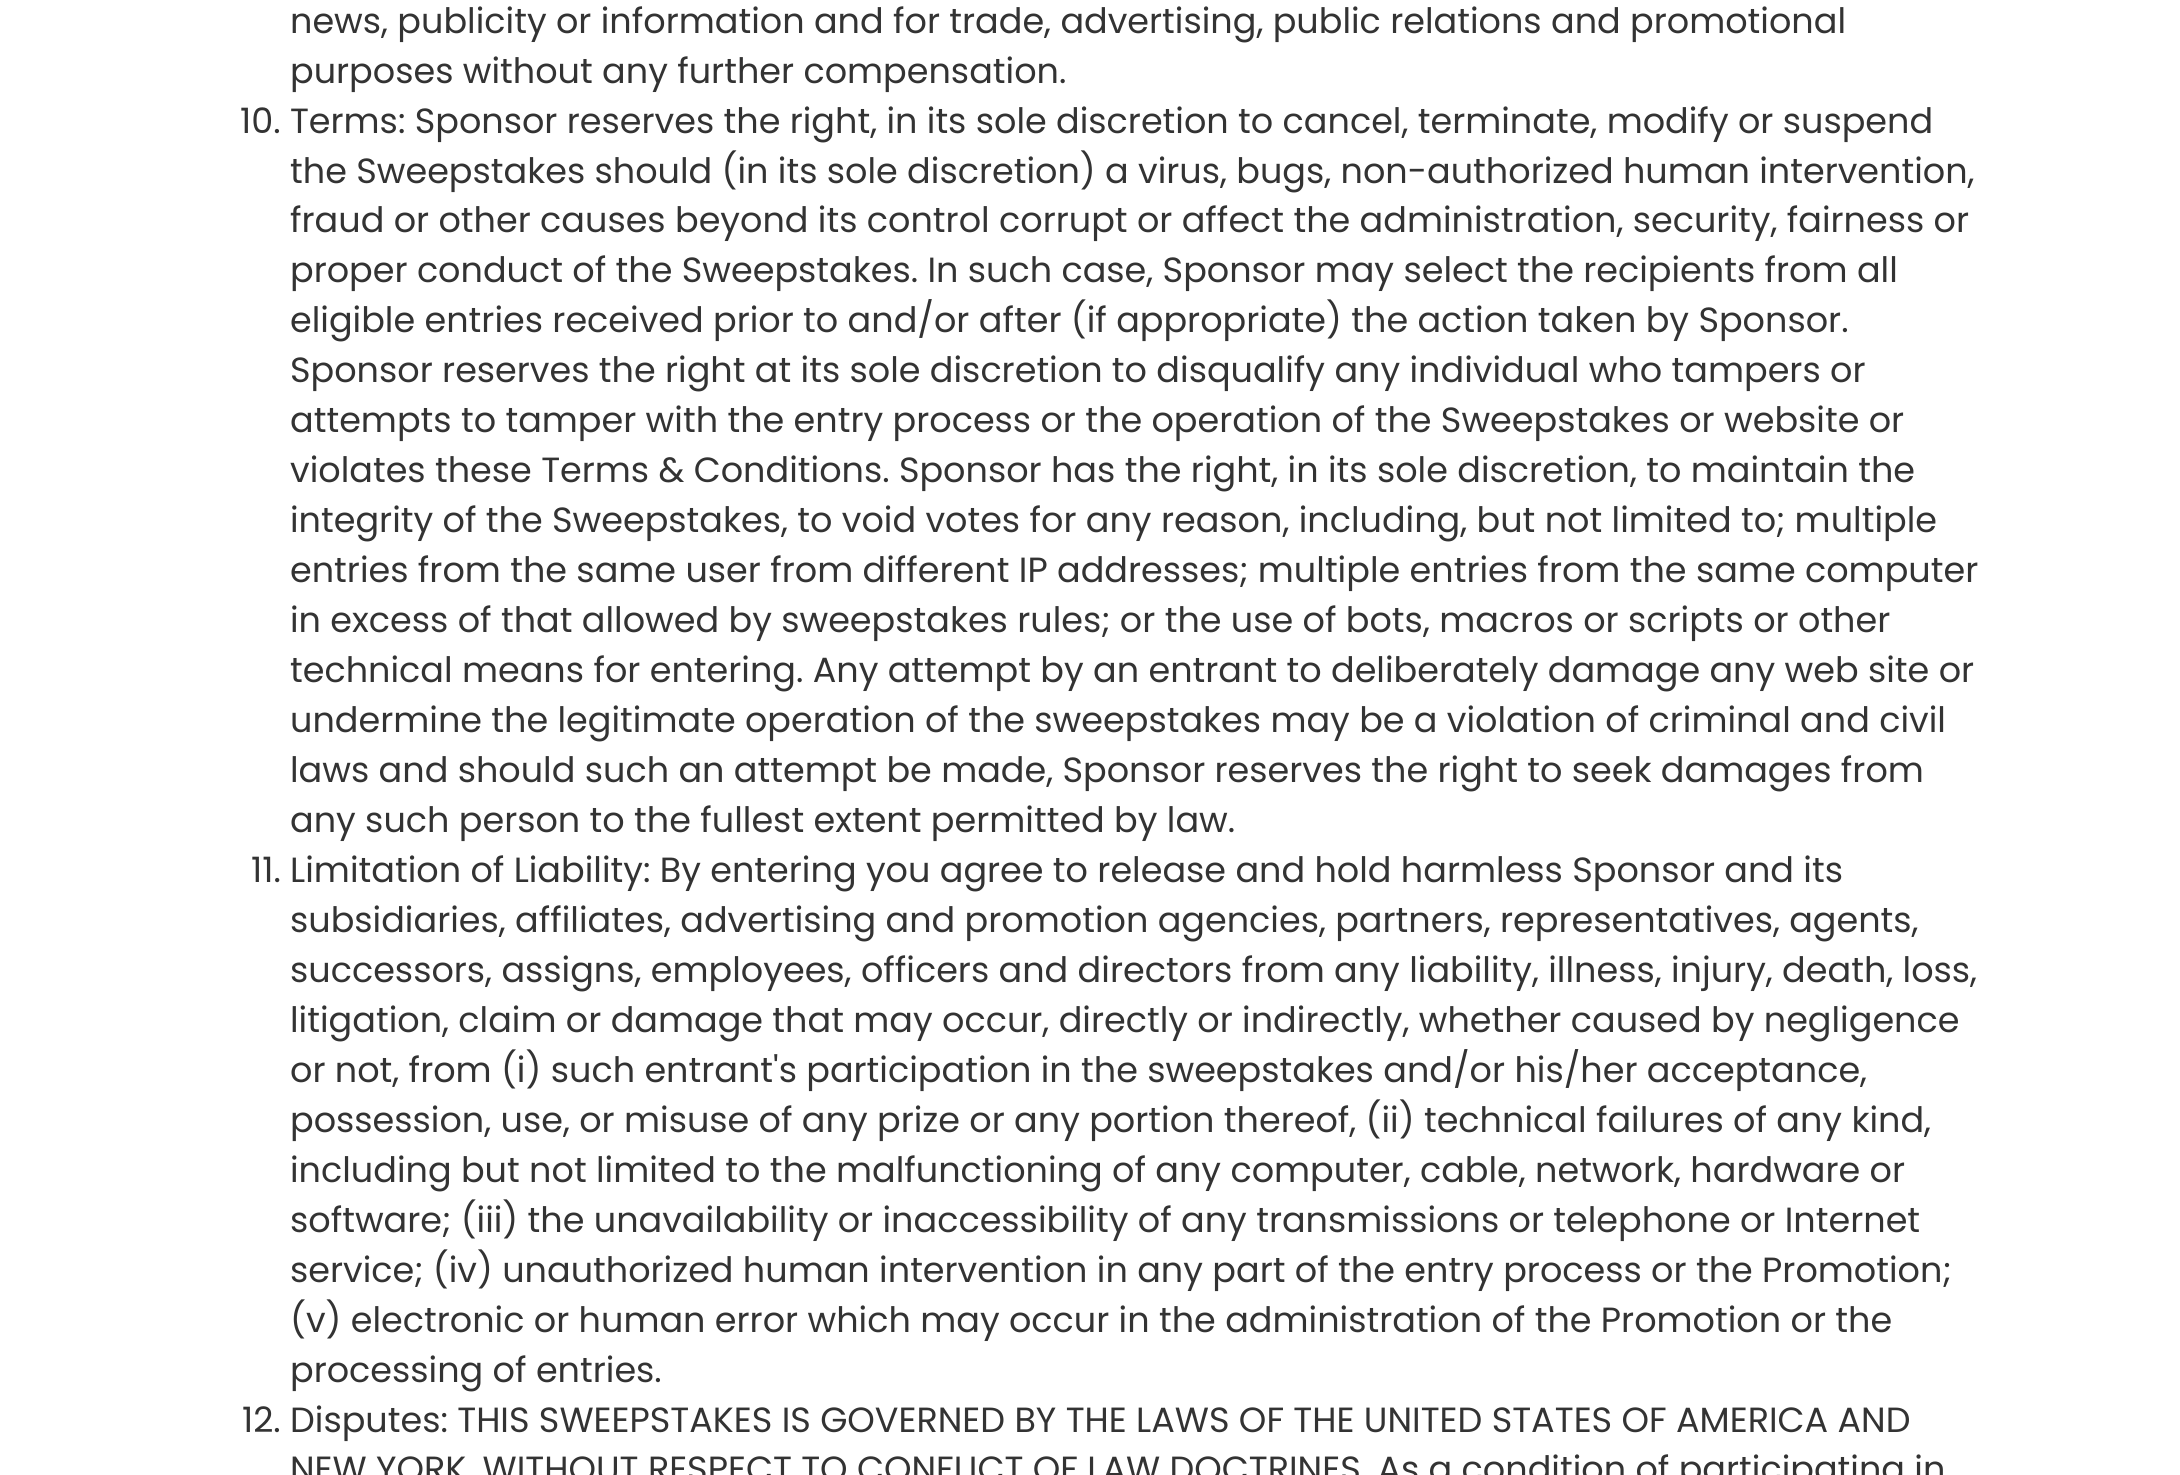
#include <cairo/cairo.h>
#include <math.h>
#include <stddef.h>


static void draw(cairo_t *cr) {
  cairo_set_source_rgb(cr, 1, 1, 1);
  cairo_paint(cr);
  cairo_select_font_face(cr, "Poppins", CAIRO_FONT_SLANT_NORMAL, CAIRO_FONT_WEIGHT_NORMAL);
  cairo_set_font_size(cr, 35);
  cairo_set_source_rgb(cr, 51 / 255.0, 51 / 255.0, 51 / 255.0);
  cairo_move_to(cr, 290, 33);
  cairo_show_text(cr, "news, publicity or information and for trade, advertising, public relations and promotional");
  cairo_move_to(cr, 290, 83);
  cairo_show_text(cr, "purposes without any further compensation.");
  cairo_move_to(cr, 240, 133);
  cairo_show_text(cr, "10. Terms: Sponsor reserves the right, in its sole discretion to cancel, terminate, modify or suspend");
  cairo_move_to(cr, 290, 183);
  cairo_show_text(cr, "the Sweepstakes should (in its sole discretion) a virus, bugs, non-authorized human intervention,");
  cairo_move_to(cr, 290, 232);
  cairo_show_text(cr, "fraud or other causes beyond its control corrupt or affect the administration, security, fairness or");
  cairo_move_to(cr, 290, 282);
  cairo_show_text(cr, "proper conduct of the Sweepstakes. In such case, Sponsor may select the recipients from all");
  cairo_move_to(cr, 290, 332);
  cairo_show_text(cr, "eligible entries received prior to and/or after (if appropriate) the action taken by Sponsor.");
  cairo_move_to(cr, 290, 382);
  cairo_show_text(cr, "Sponsor reserves the right at its sole discretion to disqualify any individual who tampers or");
  cairo_move_to(cr, 290, 432);
  cairo_show_text(cr, "attempts to tamper with the entry process or the operation of the Sweepstakes or website or");
  cairo_move_to(cr, 290, 482);
  cairo_show_text(cr, "violates these Terms & Conditions. Sponsor has the right, in its sole discretion, to maintain the");
  cairo_move_to(cr, 290, 532);
  cairo_show_text(cr, "integrity of the Sweepstakes, to void votes for any reason, including, but not limited to; multiple");
  cairo_move_to(cr, 290, 582);
  cairo_show_text(cr, "entries from the same user from different IP addresses; multiple entries from the same computer");
  cairo_move_to(cr, 290, 632);
  cairo_show_text(cr, "in excess of that allowed by sweepstakes rules; or the use of bots, macros or scripts or other");
  cairo_move_to(cr, 290, 682);
  cairo_show_text(cr, "technical means for entering. Any attempt by an entrant to deliberately damage any web site or");
  cairo_move_to(cr, 290, 732);
  cairo_show_text(cr, "undermine the legitimate operation of the sweepstakes may be a violation of criminal and civil");
  cairo_move_to(cr, 290, 782);
  cairo_show_text(cr, "laws and should such an attempt be made, Sponsor reserves the right to seek damages from");
  cairo_move_to(cr, 290, 832);
  cairo_show_text(cr, "any such person to the fullest extent permitted by law.");
  cairo_move_to(cr, 251, 882);
  cairo_show_text(cr, "11. Limitation of Liability: By entering you agree to release and hold harmless Sponsor and its");
  cairo_move_to(cr, 290, 932);
  cairo_show_text(cr, "subsidiaries, affiliates, advertising and promotion agencies, partners, representatives, agents,");
  cairo_move_to(cr, 290, 982);
  cairo_show_text(cr, "successors, assigns, employees, officers and directors from any liability, illness, injury, death, loss,");
  cairo_move_to(cr, 290, 1032);
  cairo_show_text(cr, "litigation, claim or damage that may occur, directly or indirectly, whether caused by negligence");
  cairo_move_to(cr, 290, 1082);
  cairo_show_text(cr, "or not, from (i) such entrant's participation in the sweepstakes and/or his/her acceptance,");
  cairo_move_to(cr, 290, 1132);
  cairo_show_text(cr, "possession, use, or misuse of any prize or any portion thereof, (ii) technical failures of any kind,");
  cairo_move_to(cr, 290, 1182);
  cairo_show_text(cr, "including but not limited to the malfunctioning of any computer, cable, network, hardware or");
  cairo_move_to(cr, 290, 1232);
  cairo_show_text(cr, "software; (iii) the unavailability or inaccessibility of any transmissions or telephone or Internet");
  cairo_move_to(cr, 290, 1282);
  cairo_show_text(cr, "service; (iv) unauthorized human intervention in any part of the entry process or the Promotion;");
  cairo_move_to(cr, 290, 1332);
  cairo_show_text(cr, "(v) electronic or human error which may occur in the administration of the Promotion or the");
  cairo_move_to(cr, 290, 1382);
  cairo_show_text(cr, "processing of entries.");
  cairo_move_to(cr, 242, 1432);
  cairo_show_text(cr, "12. Disputes: THIS SWEEPSTAKES IS GOVERNED BY THE LAWS OF THE UNITED STATES OF AMERICA AND");
  cairo_move_to(cr, 290, 1481);
  cairo_show_text(cr, "NEW YORK, WITHOUT RESPECT TO CONFLICT OF LAW DOCTRINES. As a condition of participating in");
}

int main(void) {
  cairo_surface_t *surface = cairo_image_surface_create(CAIRO_FORMAT_RGB24, 2180, 1475);
  cairo_t *cr = cairo_create(surface);
  cairo_font_options_t *options = cairo_font_options_create();
  cairo_font_options_set_hint_metrics(options, CAIRO_HINT_METRICS_OFF);
  cairo_font_options_set_hint_style(options, CAIRO_HINT_STYLE_NONE);
  cairo_set_font_options(cr, options);
  cairo_set_miter_limit(cr, 4);
  draw(cr);
  cairo_surface_write_to_png(surface, "out.png");
  cairo_font_options_destroy(options);
  cairo_destroy(cr);
  cairo_surface_destroy(surface);
  return 0;
}
